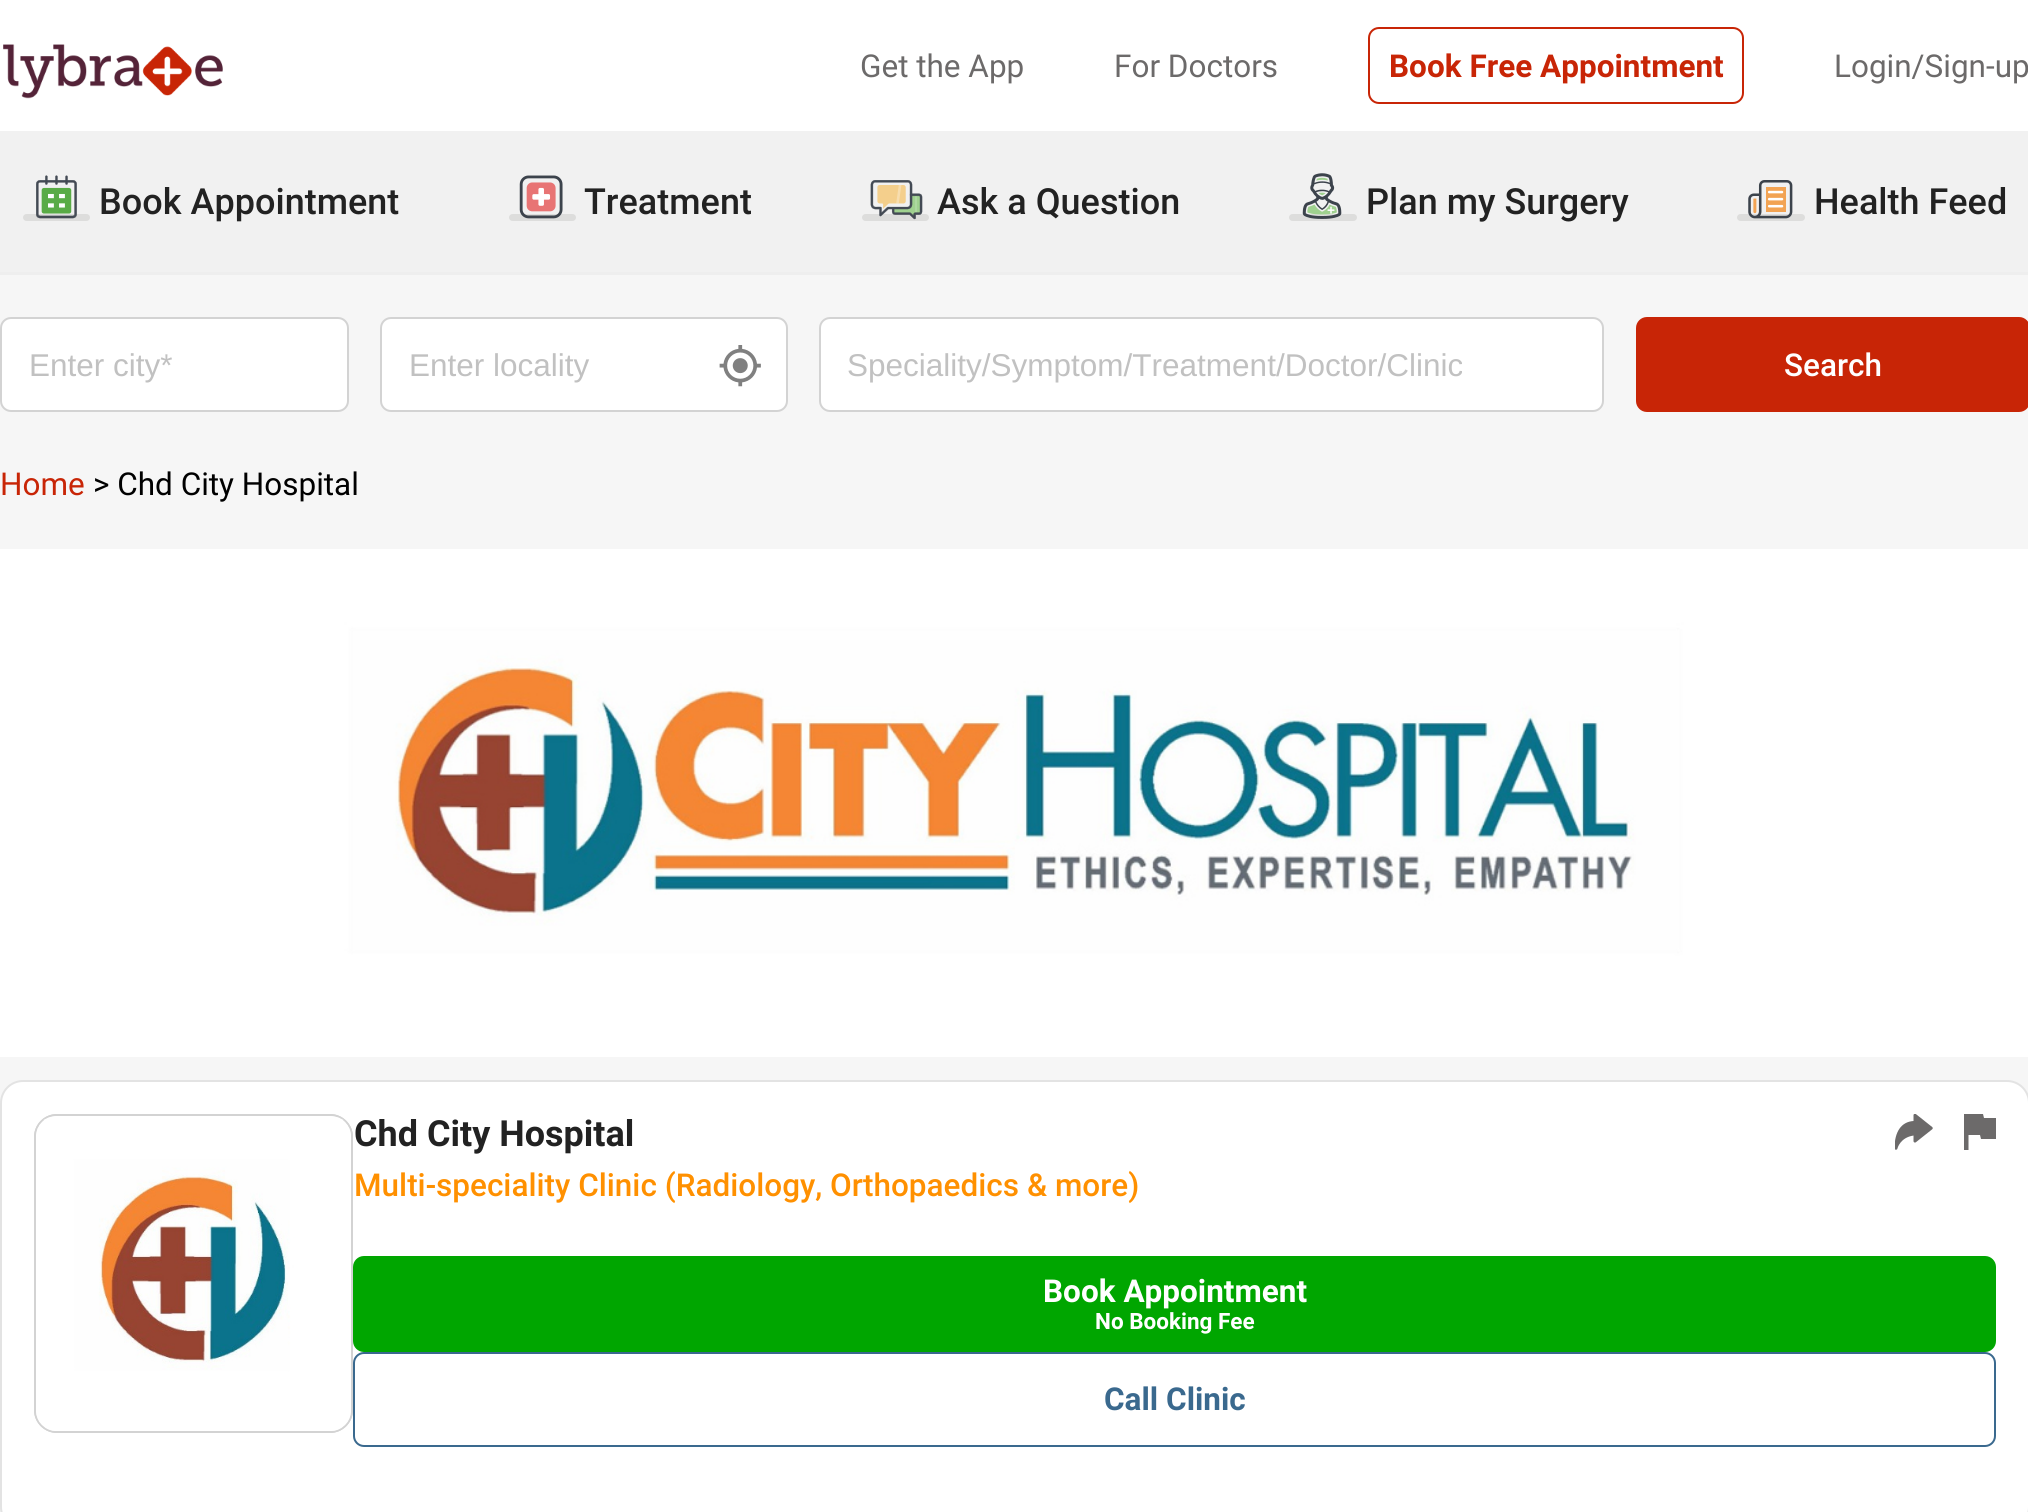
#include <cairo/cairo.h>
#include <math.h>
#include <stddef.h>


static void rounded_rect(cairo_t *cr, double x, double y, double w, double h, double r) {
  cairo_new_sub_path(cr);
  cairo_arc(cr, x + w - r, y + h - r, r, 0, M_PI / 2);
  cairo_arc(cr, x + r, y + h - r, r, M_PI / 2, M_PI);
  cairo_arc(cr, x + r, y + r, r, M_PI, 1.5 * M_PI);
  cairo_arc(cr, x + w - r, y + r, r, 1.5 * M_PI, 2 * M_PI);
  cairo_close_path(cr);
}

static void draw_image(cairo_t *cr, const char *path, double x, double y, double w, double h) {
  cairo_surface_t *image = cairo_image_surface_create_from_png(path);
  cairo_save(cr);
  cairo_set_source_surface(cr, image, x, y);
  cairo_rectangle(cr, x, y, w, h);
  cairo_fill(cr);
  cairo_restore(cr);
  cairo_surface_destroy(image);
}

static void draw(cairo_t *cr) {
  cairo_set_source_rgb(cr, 238 / 255.0, 238 / 255.0, 238 / 255.0);
  cairo_paint(cr);
  cairo_set_source_rgb(cr, 1, 1, 1);
  cairo_rectangle(cr, 0, 0, 2028, 131);
  cairo_fill(cr);
  draw_image(cr, "images/1.png", 3, 44, 220, 55);
  rounded_rect(cr, 1369, 28, 374, 75, 10);
  cairo_set_source_rgb(cr, 200 / 255.0, 37 / 255.0, 6 / 255.0);
  cairo_stroke(cr);
  cairo_set_source_rgb(cr, 241 / 255.0, 241 / 255.0, 241 / 255.0);
  cairo_rectangle(cr, 0, 131, 2028, 141);
  cairo_fill(cr);
  draw_image(cr, "images/2.png", 23, 175, 67, 46);
  draw_image(cr, "images/3.png", 509, 175, 67, 46);
  draw_image(cr, "images/4.png", 862, 180, 67, 41);
  draw_image(cr, "images/5.png", 1289, 173, 68, 48);
  draw_image(cr, "images/6.png", 1737, 180, 68, 41);
  cairo_set_source_rgb(cr, 246 / 255.0, 246 / 255.0, 246 / 255.0);
  cairo_rectangle(cr, 0, 275, 2028, 1237);
  cairo_fill(cr);
  cairo_set_source_rgb(cr, 1, 1, 1);
  rounded_rect(cr, 1, 318, 347, 93, 10);
  cairo_fill_preserve(cr);
  cairo_set_source_rgb(cr, 211 / 255.0, 211 / 255.0, 211 / 255.0);
  cairo_stroke(cr);
  cairo_set_source_rgb(cr, 1, 1, 1);
  rounded_rect(cr, 381, 318, 406, 93, 10);
  cairo_fill_preserve(cr);
  cairo_set_source_rgb(cr, 211 / 255.0, 211 / 255.0, 211 / 255.0);
  cairo_stroke(cr);
  draw_image(cr, "images/7.png", 719, 345, 42, 42);
  cairo_set_source_rgb(cr, 1, 1, 1);
  rounded_rect(cr, 820, 318, 783, 93, 10);
  cairo_fill_preserve(cr);
  cairo_set_source_rgb(cr, 211 / 255.0, 211 / 255.0, 211 / 255.0);
  cairo_stroke(cr);
  cairo_set_source_rgb(cr, 200 / 255.0, 37 / 255.0, 6 / 255.0);
  rounded_rect(cr, 1637, 318, 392, 93, 10);
  cairo_fill_preserve(cr);
  cairo_stroke(cr);
  draw_image(cr, "images/8.png", 0, 549, 2028, 508);
  cairo_set_source_rgb(cr, 1, 1, 1);
  rounded_rect(cr, 1, 1081, 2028, 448, 22);
  cairo_fill_preserve(cr);
  cairo_set_source_rgb(cr, 227 / 255.0, 227 / 255.0, 227 / 255.0);
  cairo_stroke(cr);
  rounded_rect(cr, 35, 1115, 317, 317, 22);
  cairo_set_source_rgb(cr, 211 / 255.0, 211 / 255.0, 211 / 255.0);
  cairo_stroke(cr);
  rounded_rect(cr, 35, 1115, 317, 317, 22);
  cairo_stroke(cr);
  draw_image(cr, "images/9.png", 36, 1116, 315, 315);
  cairo_set_source_rgb(cr, 0, 166 / 255.0, 0);
  rounded_rect(cr, 354, 1257, 1641, 94, 10);
  cairo_fill_preserve(cr);
  cairo_stroke(cr);
  rounded_rect(cr, 354, 1353, 1641, 93, 10);
  cairo_set_source_rgb(cr, 58 / 255.0, 105 / 255.0, 142 / 255.0);
  cairo_stroke(cr);
  draw_image(cr, "images/10.png", 1895, 1114, 38, 36);
  cairo_set_source_rgb(cr, 108 / 255.0, 106 / 255.0, 106 / 255.0);
  cairo_new_path(cr);
  cairo_move_to(cr, 1984, 1118);
  cairo_line_to(cr, 1983, 1114);
  cairo_line_to(cr, 1964, 1114);
  cairo_line_to(cr, 1964, 1150);
  cairo_line_to(cr, 1968.5, 1150);
  cairo_line_to(cr, 1968.5, 1135);
  cairo_line_to(cr, 1980, 1135);
  cairo_line_to(cr, 1981, 1139);
  cairo_line_to(cr, 1996, 1139);
  cairo_line_to(cr, 1996, 1118);
  cairo_close_path(cr);
  cairo_fill(cr);
  cairo_select_font_face(cr, "Roboto", CAIRO_FONT_SLANT_NORMAL, CAIRO_FONT_WEIGHT_NORMAL);
  cairo_set_font_size(cr, 31.5);
  cairo_move_to(cr, 860, 77);
  cairo_show_text(cr, "Get the App");
  cairo_move_to(cr, 1114, 77);
  cairo_show_text(cr, "For Doctors");
  cairo_select_font_face(cr, "Roboto", CAIRO_FONT_SLANT_NORMAL, CAIRO_FONT_WEIGHT_BOLD);
  cairo_set_source_rgb(cr, 200 / 255.0, 37 / 255.0, 6 / 255.0);
  cairo_move_to(cr, 1389, 77);
  cairo_show_text(cr, "Book Free Appointment");
  cairo_select_font_face(cr, "Roboto", CAIRO_FONT_SLANT_NORMAL, CAIRO_FONT_WEIGHT_NORMAL);
  cairo_set_source_rgb(cr, 108 / 255.0, 106 / 255.0, 106 / 255.0);
  cairo_move_to(cr, 1834, 77);
  cairo_show_text(cr, "Login/Sign-up");
  cairo_select_font_face(cr, "Roboto Medium", CAIRO_FONT_SLANT_NORMAL, CAIRO_FONT_WEIGHT_NORMAL);
  cairo_set_font_size(cr, 36);
  cairo_set_source_rgb(cr, 34 / 255.0, 34 / 255.0, 34 / 255.0);
  cairo_move_to(cr, 99, 214);
  cairo_show_text(cr, "Book Appointment");
  cairo_move_to(cr, 584, 214);
  cairo_show_text(cr, "Treatment");
  cairo_move_to(cr, 937, 214);
  cairo_show_text(cr, "Ask a Question");
  cairo_move_to(cr, 1366, 214);
  cairo_show_text(cr, "Plan my Surgery");
  cairo_move_to(cr, 1814, 214);
  cairo_show_text(cr, "Health Feed");
  cairo_select_font_face(cr, "Liberation Sans", CAIRO_FONT_SLANT_NORMAL, CAIRO_FONT_WEIGHT_NORMAL);
  cairo_set_font_size(cr, 31.5);
  cairo_set_source_rgb(cr, 193 / 255.0, 193 / 255.0, 193 / 255.0);
  cairo_move_to(cr, 29, 376);
  cairo_show_text(cr, "Enter city*");
  cairo_move_to(cr, 409, 376);
  cairo_show_text(cr, "Enter locality");
  cairo_move_to(cr, 847, 376);
  cairo_show_text(cr, "Speciality/Symptom/Treatment/Doctor/Clinic");
  cairo_select_font_face(cr, "Roboto Medium", CAIRO_FONT_SLANT_NORMAL, CAIRO_FONT_WEIGHT_NORMAL);
  cairo_set_source_rgb(cr, 1, 1, 1);
  cairo_move_to(cr, 1784, 376);
  cairo_show_text(cr, "Search");
  cairo_select_font_face(cr, "Roboto", CAIRO_FONT_SLANT_NORMAL, CAIRO_FONT_WEIGHT_NORMAL);
  cairo_set_source_rgb(cr, 200 / 255.0, 37 / 255.0, 6 / 255.0);
  cairo_move_to(cr, 0, 495);
  cairo_show_text(cr, "Home");
  cairo_set_source_rgb(cr, 0, 0, 0);
  cairo_move_to(cr, 93, 495);
  cairo_show_text(cr, "> Chd City Hospital");
  cairo_select_font_face(cr, "Roboto", CAIRO_FONT_SLANT_NORMAL, CAIRO_FONT_WEIGHT_BOLD);
  cairo_set_font_size(cr, 36);
  cairo_set_source_rgb(cr, 34 / 255.0, 34 / 255.0, 34 / 255.0);
  cairo_move_to(cr, 354, 1146);
  cairo_show_text(cr, "Chd City Hospital");
  cairo_select_font_face(cr, "Roboto Medium", CAIRO_FONT_SLANT_NORMAL, CAIRO_FONT_WEIGHT_NORMAL);
  cairo_set_font_size(cr, 31.5);
  cairo_set_source_rgb(cr, 1, 144 / 255.0, 0);
  cairo_move_to(cr, 354, 1196);
  cairo_show_text(cr, "Multi-speciality Clinic (Radiology, Orthopaedics & more)");
  cairo_select_font_face(cr, "Roboto", CAIRO_FONT_SLANT_NORMAL, CAIRO_FONT_WEIGHT_BOLD);
  cairo_set_source_rgb(cr, 1, 1, 1);
  cairo_move_to(cr, 1043, 1302);
  cairo_show_text(cr, "Book Appointment");
  cairo_set_font_size(cr, 22.5);
  cairo_move_to(cr, 1095, 1329);
  cairo_show_text(cr, "No Booking Fee");
  cairo_set_font_size(cr, 31.5);
  cairo_set_source_rgb(cr, 58 / 255.0, 105 / 255.0, 142 / 255.0);
  cairo_move_to(cr, 1104, 1410);
  cairo_show_text(cr, "Call Clinic");
}

int main(void) {
  cairo_surface_t *surface = cairo_image_surface_create(CAIRO_FORMAT_RGB24, 2028, 1512);
  cairo_t *cr = cairo_create(surface);
  cairo_font_options_t *options = cairo_font_options_create();
  cairo_font_options_set_hint_metrics(options, CAIRO_HINT_METRICS_OFF);
  cairo_font_options_set_hint_style(options, CAIRO_HINT_STYLE_NONE);
  cairo_set_font_options(cr, options);
  cairo_set_miter_limit(cr, 4);
  draw(cr);
  cairo_surface_write_to_png(surface, "out.png");
  cairo_font_options_destroy(options);
  cairo_destroy(cr);
  cairo_surface_destroy(surface);
  return 0;
}
